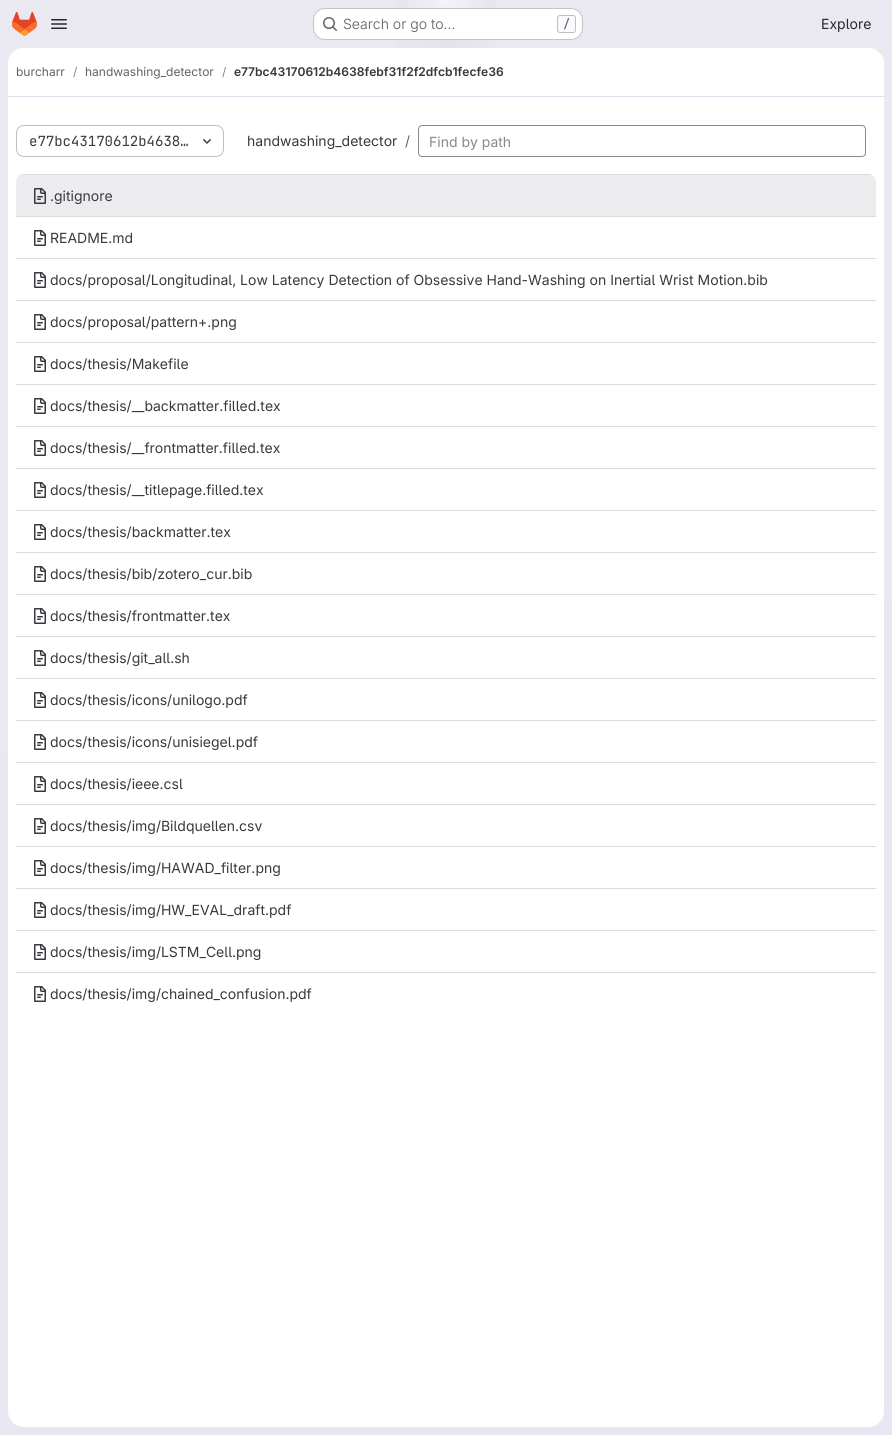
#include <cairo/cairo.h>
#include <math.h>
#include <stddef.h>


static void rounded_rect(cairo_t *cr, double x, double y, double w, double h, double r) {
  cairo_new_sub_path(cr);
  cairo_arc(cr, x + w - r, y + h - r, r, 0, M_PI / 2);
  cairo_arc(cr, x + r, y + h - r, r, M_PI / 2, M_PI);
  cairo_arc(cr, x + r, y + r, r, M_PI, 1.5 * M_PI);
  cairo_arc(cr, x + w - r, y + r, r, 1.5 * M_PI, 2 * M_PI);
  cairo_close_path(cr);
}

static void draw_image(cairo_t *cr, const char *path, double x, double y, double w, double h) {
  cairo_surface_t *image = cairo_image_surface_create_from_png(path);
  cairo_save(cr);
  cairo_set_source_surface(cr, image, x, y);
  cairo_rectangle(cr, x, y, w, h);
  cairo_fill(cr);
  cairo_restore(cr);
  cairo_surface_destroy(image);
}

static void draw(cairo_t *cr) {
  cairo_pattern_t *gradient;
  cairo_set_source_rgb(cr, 1, 1, 1);
  cairo_paint(cr);
  gradient = cairo_pattern_create_linear(582, 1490, 310, -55);
  cairo_pattern_add_color_stop_rgba(gradient, 0, 232 / 255.0, 230 / 255.0, 240 / 255.0, 1);
  cairo_pattern_add_color_stop_rgba(gradient, 0.7, 234 / 255.0, 233 / 255.0, 242 / 255.0, 1);
  cairo_set_source(cr, gradient);
  cairo_pattern_destroy(gradient);
  cairo_rectangle(cr, 0, 0, 892, 1435);
  cairo_fill(cr);
  gradient = cairo_pattern_create_radial(0, 0, 0, 0, 0, 1);
  cairo_pattern_set_matrix(gradient, &(cairo_matrix_t){1.0 / 446, 0, 0, 1.0 / 1435, -1.0 * 446 / 446, -1.0 * 0 / 1435});
  cairo_pattern_add_color_stop_rgba(gradient, 0, 228 / 255.0, 226 / 255.0, 237 / 255.0, 1);
  cairo_pattern_add_color_stop_rgba(gradient, 0.16, 228 / 255.0, 226 / 255.0, 237 / 255.0, 0);
  cairo_set_source(cr, gradient);
  cairo_pattern_destroy(gradient);
  cairo_rectangle(cr, 395, 0, 102, 48);
  cairo_fill(cr);
  gradient = cairo_pattern_create_radial(0, 0, 0, 0, 0, 1);
  cairo_pattern_set_matrix(gradient, &(cairo_matrix_t){1.0 / 446, 0, 0, 1.0 / 1435, -1.0 * 446 / 446, -1.0 * 0 / 1435});
  cairo_pattern_add_color_stop_rgba(gradient, 0, 228 / 255.0, 226 / 255.0, 236 / 255.0, 1);
  cairo_pattern_add_color_stop_rgba(gradient, 0.11, 228 / 255.0, 226 / 255.0, 236 / 255.0, 0);
  cairo_set_source(cr, gradient);
  cairo_pattern_destroy(gradient);
  cairo_rectangle(cr, 428, 10, 33, 36);
  cairo_fill(cr);
  gradient = cairo_pattern_create_radial(446, 0, 0, 446, 0, 1503);
  cairo_pattern_add_color_stop_rgba(gradient, 0, 1, 1, 1, 0.6);
  cairo_pattern_add_color_stop_rgba(gradient, 0.03, 1, 1, 1, 0);
  cairo_set_source(cr, gradient);
  cairo_pattern_destroy(gradient);
  cairo_rectangle(cr, 408, 0, 76, 38);
  cairo_fill(cr);
  draw_image(cr, "images/1.png", 12, 12, 25, 24);
  draw_image(cr, "images/2.png", 51, 19, 16, 10);
  cairo_set_source_rgb(cr, 1, 1, 1);
  rounded_rect(cr, 313, 8, 270, 32, 12);
  cairo_fill(cr);
  rounded_rect(cr, 313.5, 8.5, 269, 31, 11.5);
  cairo_set_source_rgba(cr, 5 / 255.0, 5 / 255.0, 6 / 255.0, 0.24);
  cairo_set_line_width(cr, 1);
  cairo_stroke(cr);
  draw_image(cr, "images/3.png", 323, 17, 14, 14);
  cairo_set_source_rgb(cr, 251 / 255.0, 250 / 255.0, 253 / 255.0);
  rounded_rect(cr, 557.5, 15.5, 18, 17, 2.5);
  cairo_fill_preserve(cr);
  cairo_set_source_rgb(cr, 191 / 255.0, 191 / 255.0, 195 / 255.0);
  cairo_stroke(cr);
  cairo_set_source_rgb(cr, 1, 1, 1);
  rounded_rect(cr, 8, 48, 876, 1379, 16);
  cairo_fill(cr);
  cairo_new_path(cr);
  cairo_move_to(cr, 24, 48);
  cairo_line_to(cr, 868, 48);
  cairo_curve_to(cr, 877, 48, 884, 55, 884, 64);
  cairo_line_to(cr, 884, 97);
  cairo_line_to(cr, 8, 97);
  cairo_line_to(cr, 8, 64);
  cairo_curve_to(cr, 8, 55, 15, 48, 24, 48);
  cairo_close_path(cr);
  cairo_fill(cr);
  cairo_set_source_rgb(cr, 225 / 255.0, 223 / 255.0, 236 / 255.0);
  cairo_rectangle(cr, 8, 96, 876, 1);
  cairo_fill(cr);
  rounded_rect(cr, 16.5, 125.5, 207, 31, 7.5);
  cairo_set_source_rgb(cr, 191 / 255.0, 191 / 255.0, 195 / 255.0);
  cairo_stroke(cr);
  draw_image(cr, "images/4.png", 203, 139, 8, 5);
  rounded_rect(cr, 418.5, 125.5, 447, 31, 3.5);
  cairo_set_source_rgb(cr, 137 / 255.0, 136 / 255.0, 141 / 255.0);
  cairo_stroke(cr);
  cairo_set_source_rgb(cr, 236 / 255.0, 236 / 255.0, 239 / 255.0);
  cairo_new_path(cr);
  cairo_move_to(cr, 24, 174);
  cairo_line_to(cr, 868, 174);
  cairo_curve_to(cr, 872.5, 174, 876, 177.5, 876, 182);
  cairo_line_to(cr, 876, 216);
  cairo_line_to(cr, 16, 216);
  cairo_line_to(cr, 16, 182);
  cairo_curve_to(cr, 16, 177.5, 19.5, 174, 24, 174);
  cairo_close_path(cr);
  cairo_fill(cr);
  cairo_save(cr);
  rounded_rect(cr, 16, 174, 860, 840, 8);
  cairo_clip(cr);
  cairo_set_source_rgb(cr, 220 / 255.0, 220 / 255.0, 222 / 255.0);
  cairo_rectangle(cr, 16, 174, 860, 1);
  cairo_fill(cr);
  cairo_restore(cr);
  draw_image(cr, "images/5.png", 34, 188, 12, 16);
  cairo_set_source_rgb(cr, 220 / 255.0, 220 / 255.0, 222 / 255.0);
  cairo_rectangle(cr, 16, 216, 860, 1);
  cairo_fill(cr);
  draw_image(cr, "images/6.png", 34, 230, 12, 16);
  cairo_rectangle(cr, 16, 258, 860, 1);
  cairo_fill(cr);
  draw_image(cr, "images/7.png", 34, 272, 12, 16);
  cairo_rectangle(cr, 16, 300, 860, 1);
  cairo_fill(cr);
  draw_image(cr, "images/7.png", 34, 314, 12, 16);
  cairo_rectangle(cr, 16, 342, 860, 1);
  cairo_fill(cr);
  draw_image(cr, "images/7.png", 34, 356, 12, 16);
  cairo_rectangle(cr, 16, 384, 860, 1);
  cairo_fill(cr);
  draw_image(cr, "images/7.png", 34, 398, 12, 16);
  cairo_rectangle(cr, 16, 426, 860, 1);
  cairo_fill(cr);
  draw_image(cr, "images/7.png", 34, 440, 12, 16);
  cairo_rectangle(cr, 16, 468, 860, 1);
  cairo_fill(cr);
  draw_image(cr, "images/7.png", 34, 482, 12, 16);
  cairo_rectangle(cr, 16, 510, 860, 1);
  cairo_fill(cr);
  draw_image(cr, "images/7.png", 34, 524, 12, 16);
  cairo_rectangle(cr, 16, 552, 860, 1);
  cairo_fill(cr);
  draw_image(cr, "images/7.png", 34, 566, 12, 16);
  cairo_rectangle(cr, 16, 594, 860, 1);
  cairo_fill(cr);
  draw_image(cr, "images/7.png", 34, 608, 12, 16);
  cairo_rectangle(cr, 16, 636, 860, 1);
  cairo_fill(cr);
  draw_image(cr, "images/7.png", 34, 650, 12, 16);
  cairo_rectangle(cr, 16, 678, 860, 1);
  cairo_fill(cr);
  draw_image(cr, "images/7.png", 34, 692, 12, 16);
  cairo_rectangle(cr, 16, 720, 860, 1);
  cairo_fill(cr);
  draw_image(cr, "images/7.png", 34, 734, 12, 16);
  cairo_rectangle(cr, 16, 762, 860, 1);
  cairo_fill(cr);
  draw_image(cr, "images/6.png", 34, 776, 12, 16);
  cairo_rectangle(cr, 16, 804, 860, 1);
  cairo_fill(cr);
  draw_image(cr, "images/6.png", 34, 818, 12, 16);
  cairo_rectangle(cr, 16, 846, 860, 1);
  cairo_fill(cr);
  draw_image(cr, "images/6.png", 34, 860, 12, 16);
  cairo_rectangle(cr, 16, 888, 860, 1);
  cairo_fill(cr);
  draw_image(cr, "images/6.png", 34, 902, 12, 16);
  cairo_rectangle(cr, 16, 930, 860, 1);
  cairo_fill(cr);
  draw_image(cr, "images/6.png", 34, 944, 12, 16);
  cairo_rectangle(cr, 16, 972, 860, 1);
  cairo_fill(cr);
  draw_image(cr, "images/6.png", 34, 986, 12, 16);
  cairo_select_font_face(cr, "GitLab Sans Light", CAIRO_FONT_SLANT_NORMAL, CAIRO_FONT_WEIGHT_NORMAL);
  cairo_set_font_size(cr, 14);
  cairo_set_source_rgb(cr, 98 / 255.0, 97 / 255.0, 104 / 255.0);
  cairo_move_to(cr, 343, 29);
  cairo_show_text(cr, "Search or go to…");
  cairo_select_font_face(cr, "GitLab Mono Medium", CAIRO_FONT_SLANT_NORMAL, CAIRO_FONT_WEIGHT_NORMAL);
  cairo_set_font_size(cr, 12);
  cairo_move_to(cr, 563, 28);
  cairo_show_text(cr, "/");
  cairo_select_font_face(cr, "GitLab Sans", CAIRO_FONT_SLANT_NORMAL, CAIRO_FONT_WEIGHT_NORMAL);
  cairo_set_font_size(cr, 14);
  cairo_set_source_rgb(cr, 40 / 255.0, 39 / 255.0, 45 / 255.0);
  cairo_move_to(cr, 821, 29);
  cairo_show_text(cr, "Explore");
  cairo_set_font_size(cr, 12);
  cairo_set_source_rgb(cr, 98 / 255.0, 97 / 255.0, 104 / 255.0);
  cairo_move_to(cr, 16, 76);
  cairo_show_text(cr, "burcharr");
  cairo_set_source_rgb(cr, 137 / 255.0, 136 / 255.0, 141 / 255.0);
  cairo_move_to(cr, 73, 76);
  cairo_show_text(cr, "/");
  cairo_set_source_rgb(cr, 98 / 255.0, 97 / 255.0, 104 / 255.0);
  cairo_move_to(cr, 85, 76);
  cairo_show_text(cr, "handwashing_detector");
  cairo_set_source_rgb(cr, 137 / 255.0, 136 / 255.0, 141 / 255.0);
  cairo_move_to(cr, 222, 76);
  cairo_show_text(cr, "/");
  cairo_select_font_face(cr, "GitLab Sans SemiBold", CAIRO_FONT_SLANT_NORMAL, CAIRO_FONT_WEIGHT_NORMAL);
  cairo_set_source_rgb(cr, 58 / 255.0, 56 / 255.0, 63 / 255.0);
  cairo_move_to(cr, 234, 76);
  cairo_show_text(cr, "e77bc43170612b4638febf31f2f2dfcb1fecfe36");
  cairo_select_font_face(cr, "GitLab Mono", CAIRO_FONT_SLANT_NORMAL, CAIRO_FONT_WEIGHT_NORMAL);
  cairo_set_font_size(cr, 14);
  cairo_move_to(cr, 29, 146);
  cairo_show_text(cr, "e77bc43170612b4638…");
  cairo_select_font_face(cr, "GitLab Sans", CAIRO_FONT_SLANT_NORMAL, CAIRO_FONT_WEIGHT_NORMAL);
  cairo_move_to(cr, 247, 146);
  cairo_show_text(cr, "handwashing_detector");
  cairo_set_source_rgb(cr, 98 / 255.0, 97 / 255.0, 104 / 255.0);
  cairo_move_to(cr, 405, 146);
  cairo_show_text(cr, "/");
  cairo_set_source_rgb(cr, 137 / 255.0, 136 / 255.0, 141 / 255.0);
  cairo_move_to(cr, 429, 147);
  cairo_show_text(cr, "Find by path");
  cairo_set_source_rgb(cr, 58 / 255.0, 56 / 255.0, 63 / 255.0);
  cairo_move_to(cr, 50, 201);
  cairo_show_text(cr, ".gitignore");
  cairo_move_to(cr, 50, 243);
  cairo_show_text(cr, "README.md");
  cairo_move_to(cr, 50, 285);
  cairo_show_text(cr, "docs/proposal/Longitudinal, Low Latency Detection of Obsessive Hand-Washing on Inertial Wrist Motion.bib");
  cairo_move_to(cr, 50, 327);
  cairo_show_text(cr, "docs/proposal/pattern+.png");
  cairo_move_to(cr, 50, 369);
  cairo_show_text(cr, "docs/thesis/Makefile");
  cairo_move_to(cr, 50, 411);
  cairo_show_text(cr, "docs/thesis/__backmatter.filled.tex");
  cairo_move_to(cr, 50, 453);
  cairo_show_text(cr, "docs/thesis/__frontmatter.filled.tex");
  cairo_move_to(cr, 50, 495);
  cairo_show_text(cr, "docs/thesis/__titlepage.filled.tex");
  cairo_move_to(cr, 50, 537);
  cairo_show_text(cr, "docs/thesis/backmatter.tex");
  cairo_move_to(cr, 50, 579);
  cairo_show_text(cr, "docs/thesis/bib/zotero_cur.bib");
  cairo_move_to(cr, 50, 621);
  cairo_show_text(cr, "docs/thesis/frontmatter.tex");
  cairo_move_to(cr, 50, 663);
  cairo_show_text(cr, "docs/thesis/git_all.sh");
  cairo_move_to(cr, 50, 705);
  cairo_show_text(cr, "docs/thesis/icons/unilogo.pdf");
  cairo_move_to(cr, 50, 747);
  cairo_show_text(cr, "docs/thesis/icons/unisiegel.pdf");
  cairo_move_to(cr, 50, 789);
  cairo_show_text(cr, "docs/thesis/ieee.csl");
  cairo_move_to(cr, 50, 831);
  cairo_show_text(cr, "docs/thesis/img/Bildquellen.csv");
  cairo_move_to(cr, 50, 873);
  cairo_show_text(cr, "docs/thesis/img/HAWAD_filter.png");
  cairo_move_to(cr, 50, 915);
  cairo_show_text(cr, "docs/thesis/img/HW_EVAL_draft.pdf");
  cairo_move_to(cr, 50, 957);
  cairo_show_text(cr, "docs/thesis/img/LSTM_Cell.png");
  cairo_move_to(cr, 50, 999);
  cairo_show_text(cr, "docs/thesis/img/chained_confusion.pdf");
}

int main(void) {
  cairo_surface_t *surface = cairo_image_surface_create(CAIRO_FORMAT_RGB24, 892, 1435);
  cairo_t *cr = cairo_create(surface);
  cairo_font_options_t *options = cairo_font_options_create();
  cairo_font_options_set_hint_metrics(options, CAIRO_HINT_METRICS_OFF);
  cairo_font_options_set_hint_style(options, CAIRO_HINT_STYLE_NONE);
  cairo_set_font_options(cr, options);
  cairo_set_miter_limit(cr, 4);
  draw(cr);
  cairo_surface_write_to_png(surface, "out.png");
  cairo_font_options_destroy(options);
  cairo_destroy(cr);
  cairo_surface_destroy(surface);
  return 0;
}
